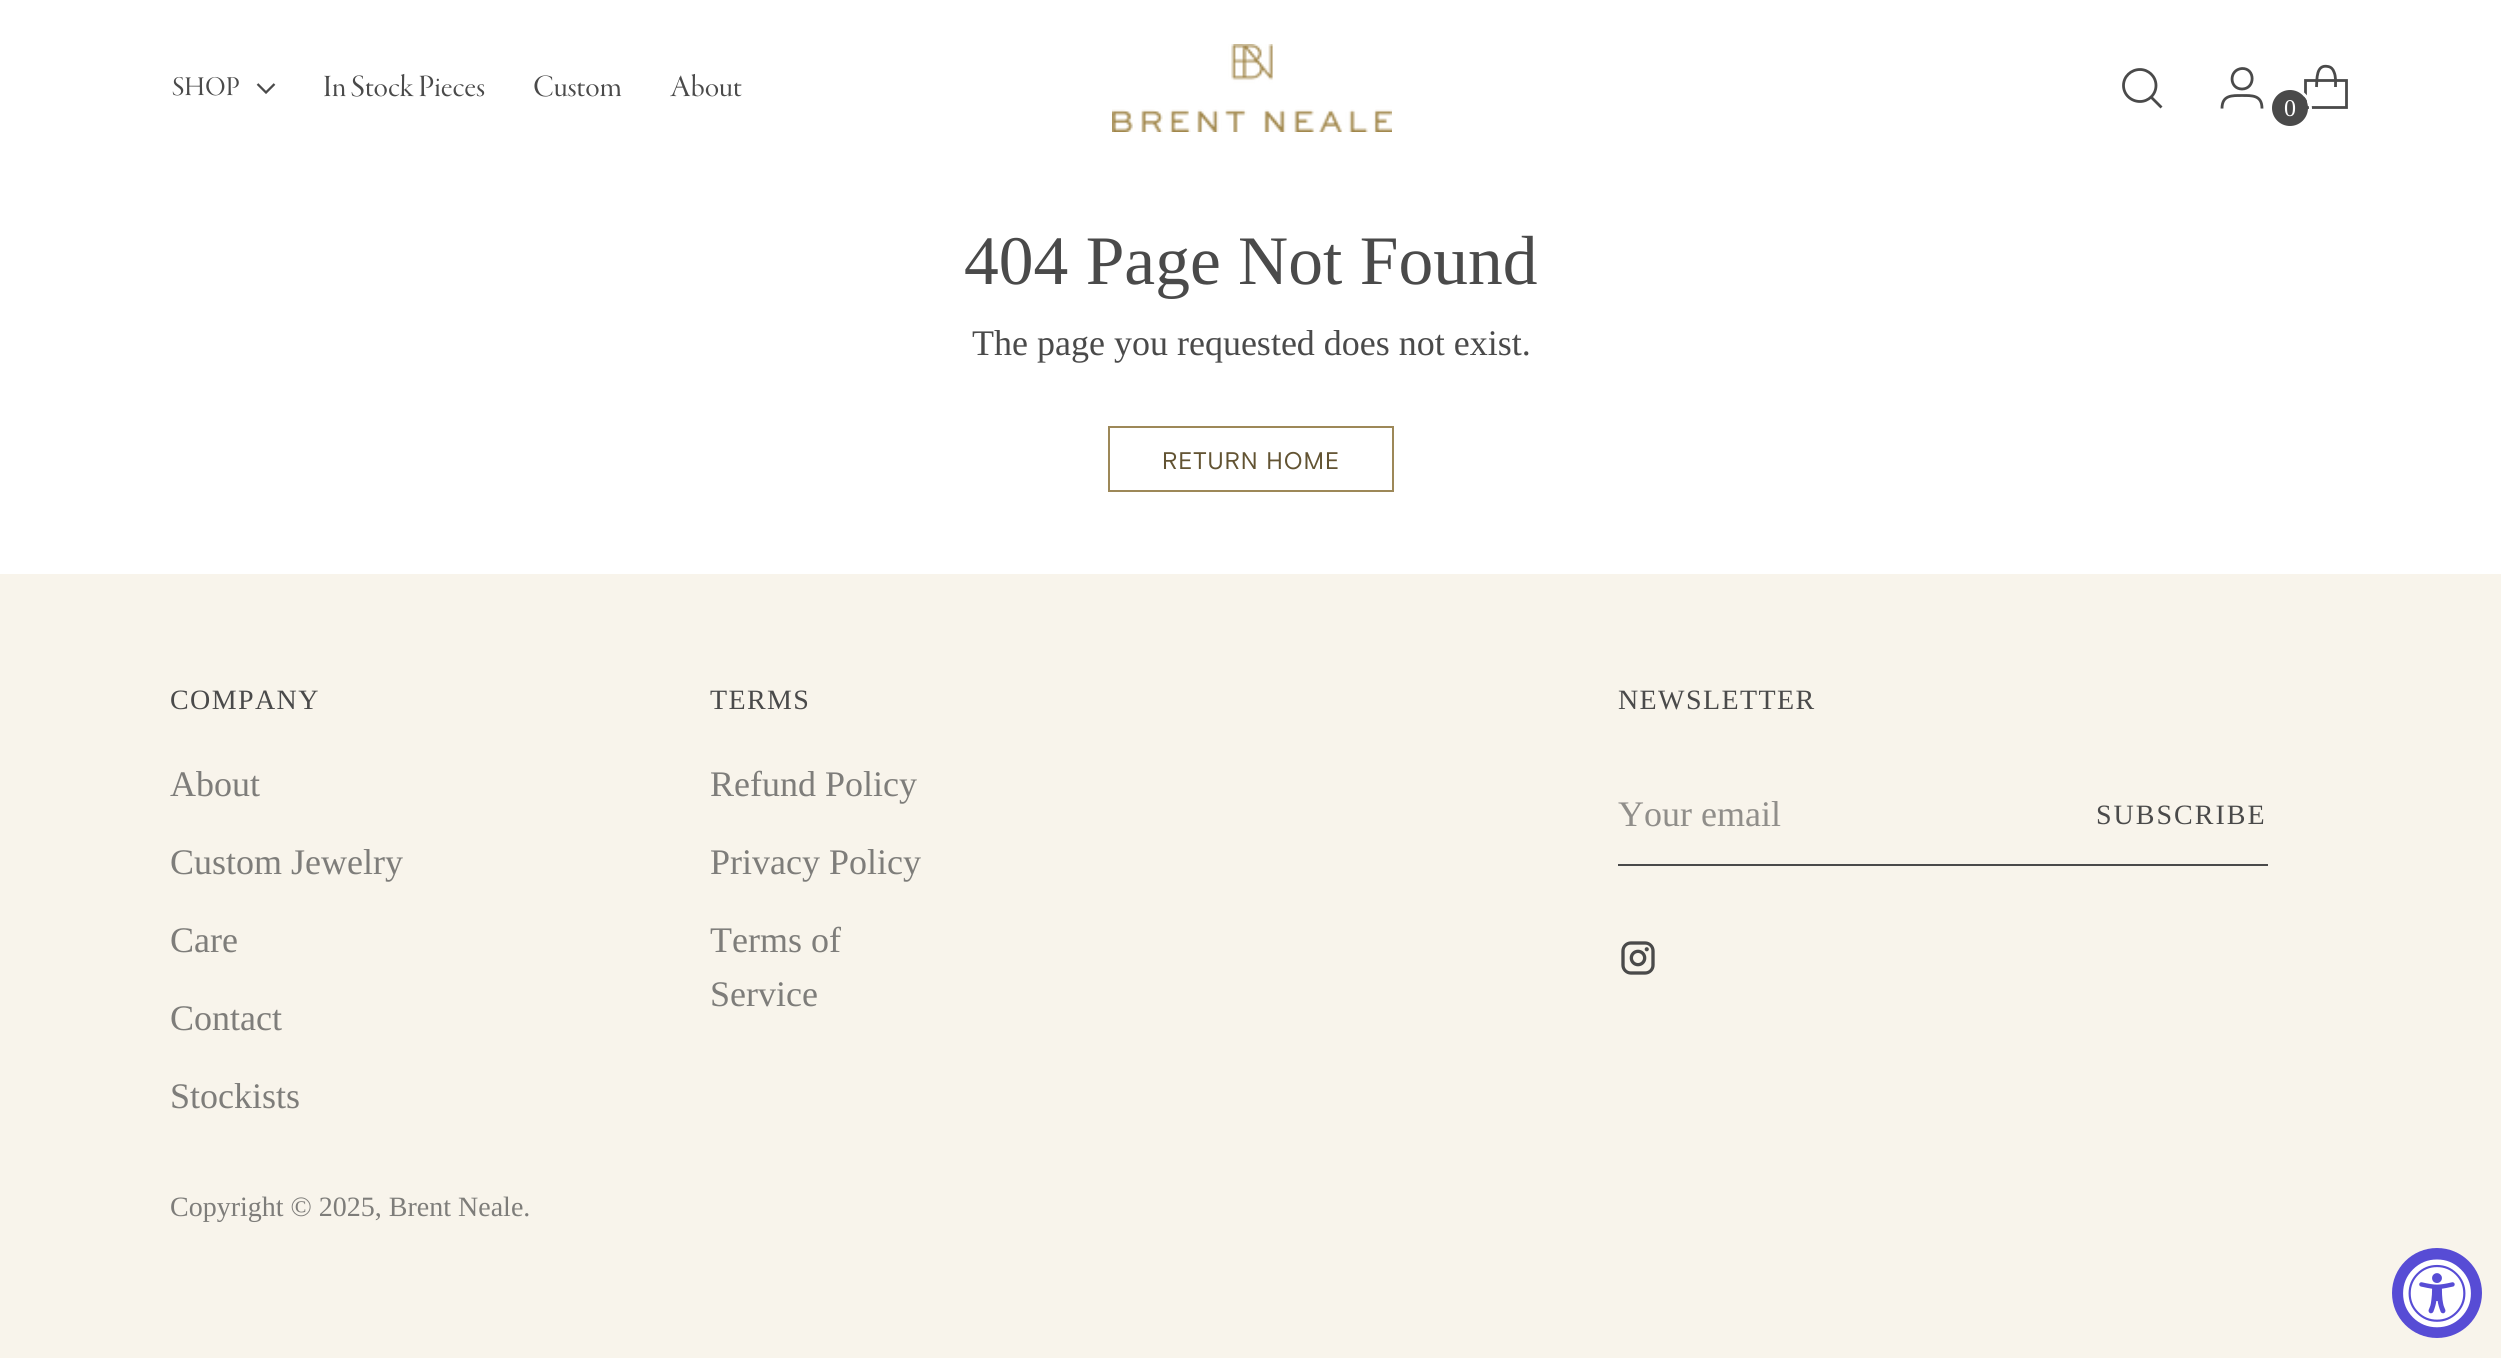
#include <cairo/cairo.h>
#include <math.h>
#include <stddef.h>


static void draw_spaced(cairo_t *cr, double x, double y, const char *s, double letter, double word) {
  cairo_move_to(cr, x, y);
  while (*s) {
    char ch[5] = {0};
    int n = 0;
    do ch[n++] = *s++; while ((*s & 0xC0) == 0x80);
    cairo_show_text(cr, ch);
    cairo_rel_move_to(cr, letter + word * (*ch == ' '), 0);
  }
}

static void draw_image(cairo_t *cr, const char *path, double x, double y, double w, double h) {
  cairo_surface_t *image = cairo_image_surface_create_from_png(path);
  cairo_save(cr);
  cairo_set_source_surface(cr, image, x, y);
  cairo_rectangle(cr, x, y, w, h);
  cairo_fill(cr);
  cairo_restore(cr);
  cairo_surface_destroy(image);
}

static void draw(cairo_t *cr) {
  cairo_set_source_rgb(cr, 1, 1, 1);
  cairo_paint(cr);
  cairo_new_path(cr);
  cairo_move_to(cr, 257.5, 84);
  cairo_line_to(cr, 266, 92.5);
  cairo_line_to(cr, 274.5, 84);
  cairo_set_source_rgb(cr, 74 / 255.0, 74 / 255.0, 74 / 255.0);
  cairo_set_line_width(cr, 2.3);
  cairo_stroke(cr);
  draw_image(cr, "images/1.png", 1112, 44, 280, 88);
  cairo_new_path(cr);
  cairo_move_to(cr, 2140, 101.5);
  cairo_curve_to(cr, 2148.5, 101.5, 2156, 94.5, 2156, 85.5);
  cairo_curve_to(cr, 2156, 76.5, 2148.5, 69.5, 2140, 69.5);
  cairo_curve_to(cr, 2131, 69.5, 2123.5, 76.5, 2123.5, 85.5);
  cairo_curve_to(cr, 2123.5, 94.5, 2131, 101.5, 2140, 101.5);
  cairo_close_path(cr);
  cairo_set_line_width(cr, 2.8);
  cairo_set_line_cap(cr, CAIRO_LINE_CAP_ROUND);
  cairo_stroke(cr);
  cairo_new_path(cr);
  cairo_move_to(cr, 2151.5, 97.5);
  cairo_line_to(cr, 2161.5, 107.5);
  cairo_set_line_cap(cr, CAIRO_LINE_CAP_BUTT);
  cairo_stroke(cr);
  cairo_new_path(cr);
  cairo_move_to(cr, 2242, 89);
  cairo_curve_to(cr, 2255.5, 89, 2255.5, 68, 2242, 68.5);
  cairo_curve_to(cr, 2228.5, 69.5, 2229, 89, 2242, 89);
  cairo_close_path(cr);
  cairo_move_to(cr, 2222, 108.5);
  cairo_curve_to(cr, 2222, 95, 2232, 95.5, 2242, 95.5);
  cairo_curve_to(cr, 2252, 95.5, 2262, 95, 2262, 108.5);
  cairo_stroke(cr);
  cairo_new_path(cr);
  cairo_move_to(cr, 2335.5, 87);
  cairo_curve_to(cr, 2335.5, 82, 2336, 76.5, 2334, 72);
  cairo_curve_to(cr, 2333, 69, 2331, 67, 2328, 66.5);
  cairo_curve_to(cr, 2316, 64, 2317, 79, 2316.5, 87);
  cairo_set_line_join(cr, CAIRO_LINE_JOIN_BEVEL);
  cairo_stroke(cr);
  cairo_new_path(cr);
  cairo_move_to(cr, 2346.5, 107.5);
  cairo_line_to(cr, 2346.5, 80.5);
  cairo_line_to(cr, 2305.5, 80.5);
  cairo_line_to(cr, 2305.5, 107.5);
  cairo_close_path(cr);
  cairo_set_line_join(cr, CAIRO_LINE_JOIN_MITER);
  cairo_stroke(cr);
  cairo_arc(cr, 2291, 109, 19.5, 0, 2 * M_PI);
  cairo_set_source_rgb(cr, 1, 1, 1);
  cairo_set_line_width(cr, 3);
  cairo_stroke(cr);
  cairo_set_source_rgb(cr, 74 / 255.0, 74 / 255.0, 74 / 255.0);
  cairo_arc(cr, 2290, 108, 18, 0, 2 * M_PI);
  cairo_fill(cr);
  cairo_rectangle(cr, 1109, 427, 284, 64);
  cairo_set_source_rgb(cr, 157 / 255.0, 136 / 255.0, 88 / 255.0);
  cairo_set_line_width(cr, 2);
  cairo_stroke(cr);
  cairo_set_source_rgb(cr, 248 / 255.0, 244 / 255.0, 235 / 255.0);
  cairo_rectangle(cr, 0, 574, 2501, 784);
  cairo_fill(cr);
  cairo_set_source_rgb(cr, 74 / 255.0, 74 / 255.0, 74 / 255.0);
  cairo_rectangle(cr, 1618, 864, 650, 2);
  cairo_fill(cr);
  draw_image(cr, "images/2.png", 1621, 941, 34, 34);
  cairo_set_source_rgb(cr, 87 / 255.0, 76 / 255.0, 213 / 255.0);
  cairo_arc(cr, 2437, 1293, 45, 0, 2 * M_PI);
  cairo_fill(cr);
  draw_image(cr, "images/3.png", 2403, 1259, 68, 69);
  cairo_select_font_face(cr, "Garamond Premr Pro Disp", CAIRO_FONT_SLANT_NORMAL, CAIRO_FONT_WEIGHT_NORMAL);
  cairo_set_font_size(cr, 28);
  cairo_set_source_rgb(cr, 74 / 255.0, 74 / 255.0, 74 / 255.0);
  cairo_move_to(cr, 172, 95);
  cairo_show_text(cr, "SHOP");
  cairo_set_font_size(cr, 32);
  cairo_move_to(cr, 323, 96);
  cairo_show_text(cr, "In Stock Pieces");
  cairo_move_to(cr, 533, 96);
  cairo_show_text(cr, "Custom");
  cairo_move_to(cr, 670, 96);
  cairo_show_text(cr, "About");
  cairo_select_font_face(cr, "Liberation Serif", CAIRO_FONT_SLANT_NORMAL, CAIRO_FONT_WEIGHT_NORMAL);
  cairo_set_font_size(cr, 24);
  cairo_set_source_rgb(cr, 1, 1, 1);
  cairo_move_to(cr, 2284, 116);
  cairo_show_text(cr, "0");
  cairo_set_font_size(cr, 69.5);
  cairo_set_source_rgb(cr, 74 / 255.0, 74 / 255.0, 74 / 255.0);
  cairo_move_to(cr, 964, 284);
  cairo_show_text(cr, "404 Page Not Found");
  cairo_set_font_size(cr, 36);
  cairo_move_to(cr, 972, 355);
  cairo_show_text(cr, "The page you requested does not exist.");
  cairo_select_font_face(cr, "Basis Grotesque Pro", CAIRO_FONT_SLANT_NORMAL, CAIRO_FONT_WEIGHT_NORMAL);
  cairo_set_font_size(cr, 24);
  cairo_set_source_rgb(cr, 98 / 255.0, 83 / 255.0, 50 / 255.0);
  draw_spaced(cr, 1162, 469, "RETURN HOME", 1, 0);
  cairo_select_font_face(cr, "Liberation Serif", CAIRO_FONT_SLANT_NORMAL, CAIRO_FONT_WEIGHT_NORMAL);
  cairo_set_font_size(cr, 28);
  cairo_set_source_rgb(cr, 74 / 255.0, 74 / 255.0, 74 / 255.0);
  draw_spaced(cr, 170, 709, "COMPANY", 1.4, 0);
  cairo_set_font_size(cr, 36);
  cairo_set_source_rgb(cr, 126 / 255.0, 125 / 255.0, 122 / 255.0);
  cairo_move_to(cr, 170, 796);
  cairo_show_text(cr, "About");
  cairo_move_to(cr, 170, 874);
  cairo_show_text(cr, "Custom Jewelry");
  cairo_move_to(cr, 170, 952);
  cairo_show_text(cr, "Care");
  cairo_move_to(cr, 170, 1030);
  cairo_show_text(cr, "Contact");
  cairo_move_to(cr, 170, 1108);
  cairo_show_text(cr, "Stockists");
  cairo_set_font_size(cr, 28);
  cairo_set_source_rgb(cr, 74 / 255.0, 74 / 255.0, 74 / 255.0);
  draw_spaced(cr, 710, 709, "TERMS", 1.4, 0);
  cairo_set_font_size(cr, 36);
  cairo_set_source_rgb(cr, 126 / 255.0, 125 / 255.0, 122 / 255.0);
  cairo_move_to(cr, 710, 796);
  cairo_show_text(cr, "Refund Policy");
  cairo_move_to(cr, 710, 874);
  cairo_show_text(cr, "Privacy Policy");
  cairo_move_to(cr, 710, 952);
  cairo_show_text(cr, "Terms of");
  cairo_move_to(cr, 710, 1006);
  cairo_show_text(cr, "Service");
  cairo_set_font_size(cr, 28);
  cairo_set_source_rgb(cr, 74 / 255.0, 74 / 255.0, 74 / 255.0);
  draw_spaced(cr, 1618, 709, "NEWSLETTER", 1.4, 0);
  cairo_set_font_size(cr, 36);
  cairo_set_source_rgb(cr, 144 / 255.0, 142 / 255.0, 138 / 255.0);
  cairo_move_to(cr, 1618, 826);
  cairo_show_text(cr, "Your email");
  cairo_set_font_size(cr, 28);
  cairo_set_source_rgb(cr, 74 / 255.0, 74 / 255.0, 74 / 255.0);
  draw_spaced(cr, 2096, 824, "SUBSCRIBE", 2, 0);
  cairo_set_source_rgb(cr, 126 / 255.0, 125 / 255.0, 122 / 255.0);
  cairo_move_to(cr, 170, 1216);
  cairo_show_text(cr, "Copyright © 2025, Brent Neale.");
}

int main(void) {
  cairo_surface_t *surface = cairo_image_surface_create(CAIRO_FORMAT_RGB24, 2501, 1358);
  cairo_t *cr = cairo_create(surface);
  cairo_font_options_t *options = cairo_font_options_create();
  cairo_font_options_set_hint_metrics(options, CAIRO_HINT_METRICS_OFF);
  cairo_font_options_set_hint_style(options, CAIRO_HINT_STYLE_NONE);
  cairo_set_font_options(cr, options);
  cairo_set_miter_limit(cr, 4);
  draw(cr);
  cairo_surface_write_to_png(surface, "out.png");
  cairo_font_options_destroy(options);
  cairo_destroy(cr);
  cairo_surface_destroy(surface);
  return 0;
}
